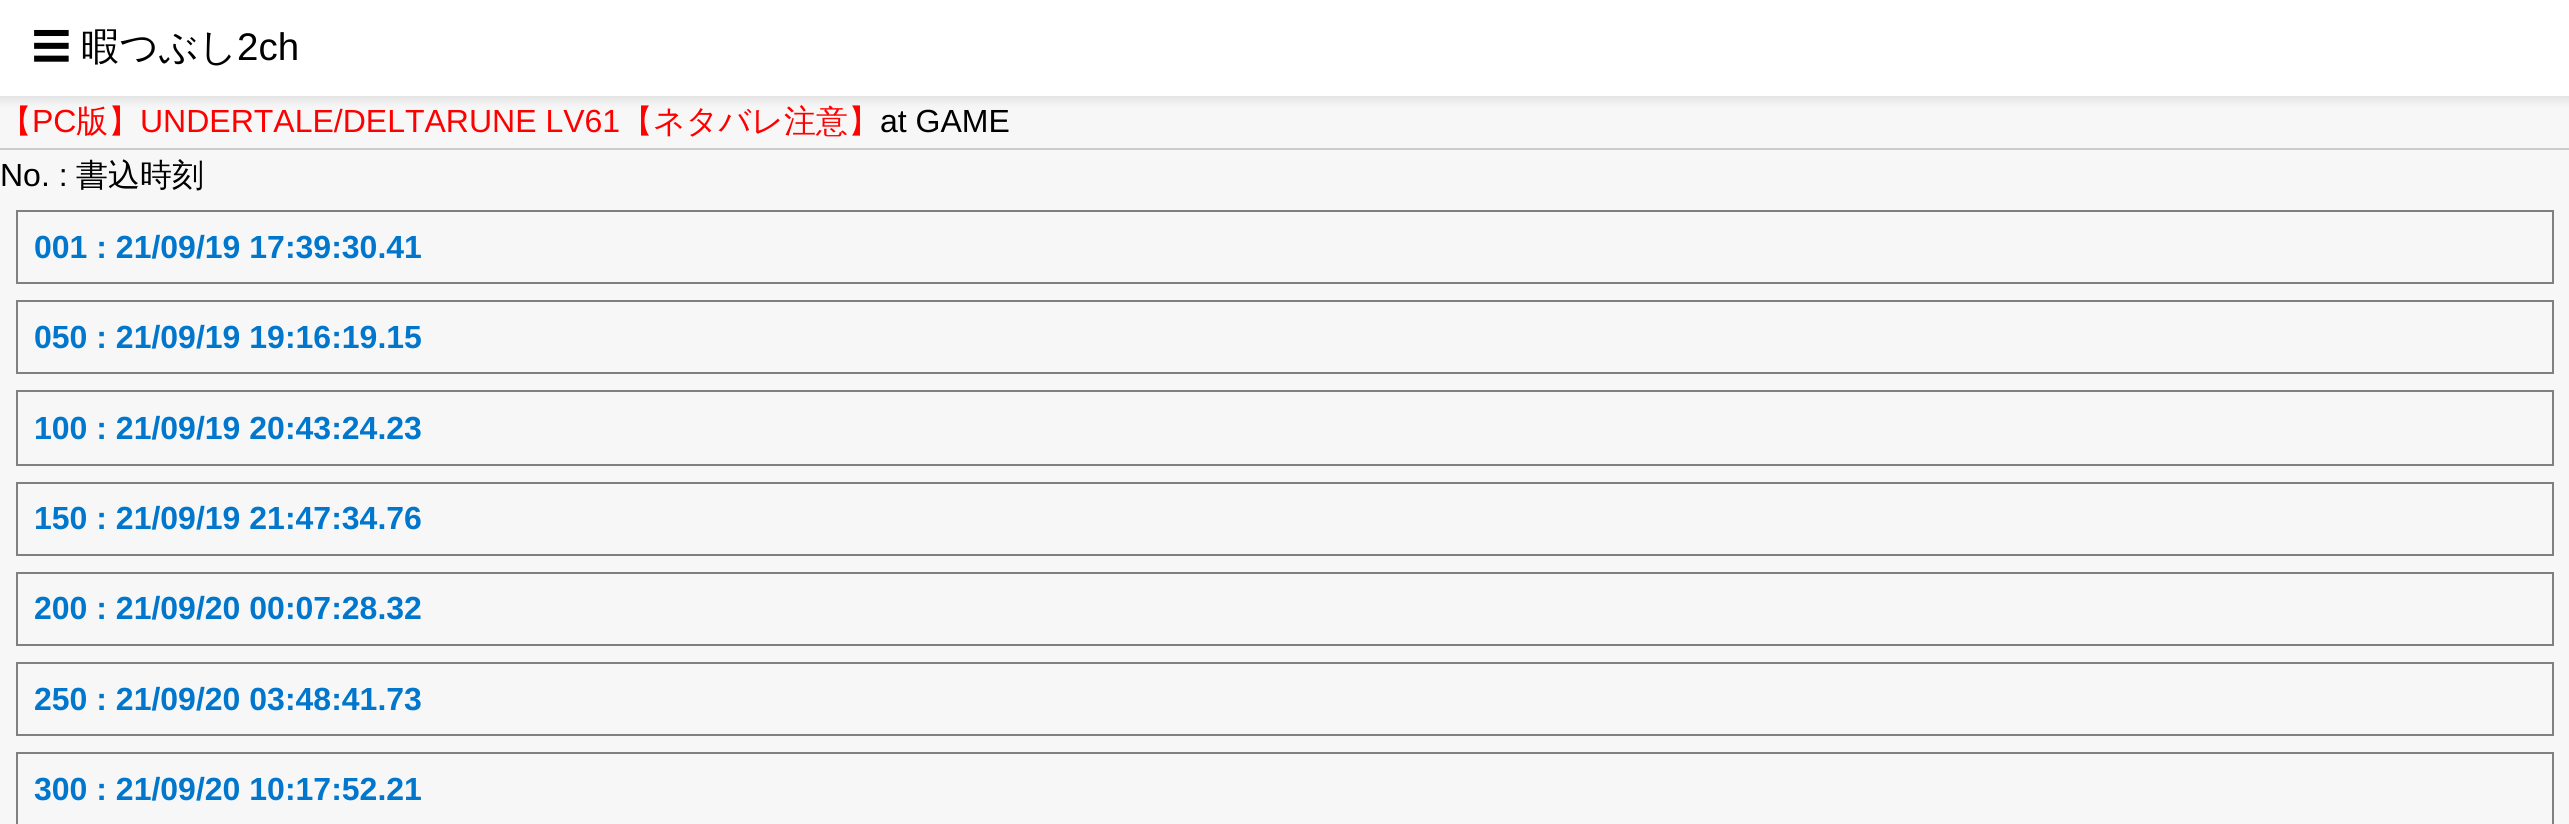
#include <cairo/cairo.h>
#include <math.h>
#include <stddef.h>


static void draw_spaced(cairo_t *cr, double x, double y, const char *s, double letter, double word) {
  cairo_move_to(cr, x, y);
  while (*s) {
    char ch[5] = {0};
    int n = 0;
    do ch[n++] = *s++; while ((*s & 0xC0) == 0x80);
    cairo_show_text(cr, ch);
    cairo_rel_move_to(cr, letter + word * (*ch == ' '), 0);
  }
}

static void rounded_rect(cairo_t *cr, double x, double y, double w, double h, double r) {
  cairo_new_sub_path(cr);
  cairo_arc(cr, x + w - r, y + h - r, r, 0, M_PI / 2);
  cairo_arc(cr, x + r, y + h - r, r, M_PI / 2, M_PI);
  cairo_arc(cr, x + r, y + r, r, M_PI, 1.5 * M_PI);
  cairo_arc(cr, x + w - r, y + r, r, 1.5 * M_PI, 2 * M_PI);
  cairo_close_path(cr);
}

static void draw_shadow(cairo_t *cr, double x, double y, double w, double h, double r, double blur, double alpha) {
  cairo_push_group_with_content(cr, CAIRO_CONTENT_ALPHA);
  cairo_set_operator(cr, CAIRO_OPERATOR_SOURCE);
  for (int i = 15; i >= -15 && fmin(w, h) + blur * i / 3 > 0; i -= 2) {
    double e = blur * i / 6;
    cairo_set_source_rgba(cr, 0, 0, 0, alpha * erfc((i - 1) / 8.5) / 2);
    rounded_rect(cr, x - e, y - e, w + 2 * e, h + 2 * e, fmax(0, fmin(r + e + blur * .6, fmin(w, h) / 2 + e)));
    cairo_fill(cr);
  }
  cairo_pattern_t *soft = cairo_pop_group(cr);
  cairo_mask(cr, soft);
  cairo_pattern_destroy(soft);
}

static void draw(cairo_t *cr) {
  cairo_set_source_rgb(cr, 247 / 255.0, 247 / 255.0, 247 / 255.0);
  cairo_paint(cr);
  cairo_set_source_rgb(cr, 0, 0, 0);
  draw_shadow(cr, -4, -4, 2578, 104, 0, 5, 0.1);
  cairo_set_source_rgb(cr, 1, 1, 1);
  cairo_rectangle(cr, 0, 0, 2569, 96);
  cairo_fill(cr);
  cairo_set_source_rgb(cr, 204 / 255.0, 204 / 255.0, 204 / 255.0);
  cairo_rectangle(cr, 0, 148, 2569, 2);
  cairo_fill(cr);
  cairo_rectangle(cr, 17, 211, 2536, 72);
  cairo_set_source_rgb(cr, 128 / 255.0, 128 / 255.0, 128 / 255.0);
  cairo_stroke(cr);
  cairo_rectangle(cr, 17, 301, 2536, 72);
  cairo_stroke(cr);
  cairo_rectangle(cr, 17, 391, 2536, 74);
  cairo_stroke(cr);
  cairo_rectangle(cr, 17, 483, 2536, 72);
  cairo_stroke(cr);
  cairo_rectangle(cr, 17, 573, 2536, 72);
  cairo_stroke(cr);
  cairo_rectangle(cr, 17, 663, 2536, 72);
  cairo_stroke(cr);
  cairo_rectangle(cr, 17, 753, 2536, 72);
  cairo_stroke(cr);
  cairo_select_font_face(cr, "WenQuanYi Zen Hei Medium", CAIRO_FONT_SLANT_NORMAL, CAIRO_FONT_WEIGHT_NORMAL);
  cairo_set_font_size(cr, 38.5);
  cairo_set_source_rgb(cr, 0, 0, 0);
  draw_spaced(cr, 32, 60, "☰ 暇つぶし", 0, -1);
  cairo_select_font_face(cr, "Liberation Sans", CAIRO_FONT_SLANT_NORMAL, CAIRO_FONT_WEIGHT_NORMAL);
  cairo_move_to(cr, 237, 60);
  cairo_show_text(cr, "2ch");
  cairo_select_font_face(cr, "WenQuanYi Zen Hei Medium", CAIRO_FONT_SLANT_NORMAL, CAIRO_FONT_WEIGHT_NORMAL);
  cairo_set_font_size(cr, 32);
  cairo_set_source_rgb(cr, 1, 0, 0);
  cairo_move_to(cr, 0, 132);
  cairo_show_text(cr, "【");
  cairo_select_font_face(cr, "Liberation Sans", CAIRO_FONT_SLANT_NORMAL, CAIRO_FONT_WEIGHT_NORMAL);
  cairo_move_to(cr, 32, 132);
  cairo_show_text(cr, "PC");
  cairo_select_font_face(cr, "WenQuanYi Zen Hei Medium", CAIRO_FONT_SLANT_NORMAL, CAIRO_FONT_WEIGHT_NORMAL);
  cairo_move_to(cr, 76, 132);
  cairo_show_text(cr, "版】");
  cairo_select_font_face(cr, "Liberation Sans", CAIRO_FONT_SLANT_NORMAL, CAIRO_FONT_WEIGHT_NORMAL);
  cairo_move_to(cr, 140, 132);
  cairo_show_text(cr, "UNDERTALE/DELTARUNE LV61");
  cairo_select_font_face(cr, "WenQuanYi Zen Hei Medium", CAIRO_FONT_SLANT_NORMAL, CAIRO_FONT_WEIGHT_NORMAL);
  cairo_move_to(cr, 621, 132);
  cairo_show_text(cr, "【ネタバレ注意】");
  cairo_select_font_face(cr, "Liberation Sans", CAIRO_FONT_SLANT_NORMAL, CAIRO_FONT_WEIGHT_NORMAL);
  cairo_set_source_rgb(cr, 0, 0, 0);
  cairo_move_to(cr, 880, 132);
  cairo_show_text(cr, "at GAME");
  cairo_move_to(cr, 0, 186);
  cairo_show_text(cr, "No. :");
  cairo_select_font_face(cr, "WenQuanYi Zen Hei Medium", CAIRO_FONT_SLANT_NORMAL, CAIRO_FONT_WEIGHT_NORMAL);
  cairo_move_to(cr, 76, 186);
  cairo_show_text(cr, "書込時刻");
  cairo_select_font_face(cr, "Liberation Sans", CAIRO_FONT_SLANT_NORMAL, CAIRO_FONT_WEIGHT_BOLD);
  cairo_set_source_rgb(cr, 0, 119 / 255.0, 204 / 255.0);
  cairo_move_to(cr, 34, 258);
  cairo_show_text(cr, "001 : 21/09/19 17:39:30.41");
  cairo_move_to(cr, 34, 348);
  cairo_show_text(cr, "050 : 21/09/19 19:16:19.15");
  cairo_move_to(cr, 34, 439);
  cairo_show_text(cr, "100 : 21/09/19 20:43:24.23");
  cairo_move_to(cr, 34, 529);
  cairo_show_text(cr, "150 : 21/09/19 21:47:34.76");
  cairo_move_to(cr, 34, 619);
  cairo_show_text(cr, "200 : 21/09/20 00:07:28.32");
  cairo_move_to(cr, 34, 710);
  cairo_show_text(cr, "250 : 21/09/20 03:48:41.73");
  cairo_move_to(cr, 34, 800);
  cairo_show_text(cr, "300 : 21/09/20 10:17:52.21");
}

int main(void) {
  cairo_surface_t *surface = cairo_image_surface_create(CAIRO_FORMAT_RGB24, 2569, 824);
  cairo_t *cr = cairo_create(surface);
  cairo_font_options_t *options = cairo_font_options_create();
  cairo_font_options_set_hint_metrics(options, CAIRO_HINT_METRICS_OFF);
  cairo_font_options_set_hint_style(options, CAIRO_HINT_STYLE_NONE);
  cairo_set_font_options(cr, options);
  cairo_set_miter_limit(cr, 4);
  draw(cr);
  cairo_surface_write_to_png(surface, "out.png");
  cairo_font_options_destroy(options);
  cairo_destroy(cr);
  cairo_surface_destroy(surface);
  return 0;
}
